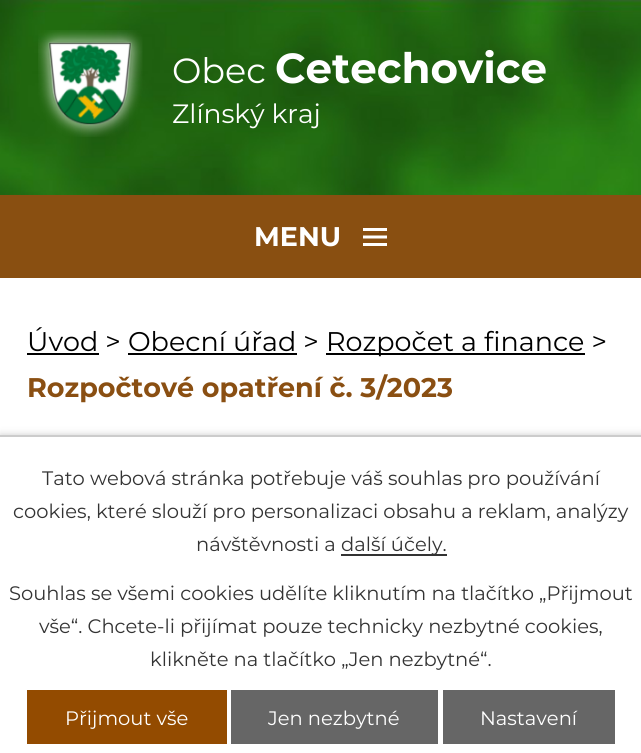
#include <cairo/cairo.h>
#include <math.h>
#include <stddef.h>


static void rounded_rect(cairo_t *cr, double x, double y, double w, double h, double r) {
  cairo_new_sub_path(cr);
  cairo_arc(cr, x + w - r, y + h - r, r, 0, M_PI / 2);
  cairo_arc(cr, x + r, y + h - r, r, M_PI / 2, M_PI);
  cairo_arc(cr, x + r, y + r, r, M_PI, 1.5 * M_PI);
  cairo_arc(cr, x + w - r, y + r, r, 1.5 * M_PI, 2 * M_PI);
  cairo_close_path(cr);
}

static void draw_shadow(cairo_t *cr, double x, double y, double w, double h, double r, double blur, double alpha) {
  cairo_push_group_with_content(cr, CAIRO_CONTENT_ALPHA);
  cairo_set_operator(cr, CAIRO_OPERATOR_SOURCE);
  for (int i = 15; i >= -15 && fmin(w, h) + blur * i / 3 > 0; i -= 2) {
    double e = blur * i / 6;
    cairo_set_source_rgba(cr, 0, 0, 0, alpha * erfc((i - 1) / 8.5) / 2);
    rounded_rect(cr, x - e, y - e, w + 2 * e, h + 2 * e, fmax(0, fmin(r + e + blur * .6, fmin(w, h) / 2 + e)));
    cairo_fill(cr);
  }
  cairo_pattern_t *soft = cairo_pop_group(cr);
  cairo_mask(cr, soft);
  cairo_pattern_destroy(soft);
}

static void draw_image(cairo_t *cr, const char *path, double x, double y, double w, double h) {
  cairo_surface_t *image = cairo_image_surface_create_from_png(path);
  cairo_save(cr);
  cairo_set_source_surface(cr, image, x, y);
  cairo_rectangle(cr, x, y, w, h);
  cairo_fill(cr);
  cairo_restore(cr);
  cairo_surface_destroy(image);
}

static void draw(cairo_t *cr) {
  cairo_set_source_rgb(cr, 1, 1, 1);
  cairo_paint(cr);
  draw_image(cr, "images/1.png", 0, 0, 641, 195);
  draw_image(cr, "images/2.png", 38, 30, 105, 107);
  cairo_set_source_rgb(cr, 137 / 255.0, 79 / 255.0, 17 / 255.0);
  cairo_rectangle(cr, 0, 195, 641, 83);
  cairo_fill(cr);
  draw_image(cr, "images/3.png", 363, 228, 24, 18);
  cairo_set_source_rgb(cr, 0, 0, 0);
  cairo_rectangle(cr, 27, 353, 72, 2);
  cairo_fill(cr);
  cairo_rectangle(cr, 326, 353, 259, 2);
  cairo_fill(cr);
  cairo_rectangle(cr, 128, 353, 169, 2);
  cairo_fill(cr);
  cairo_set_source_rgb(cr, 0, 0, 0);
  draw_shadow(cr, 0, 435, 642, 318, 0, 4, 0.2);
  cairo_set_source_rgb(cr, 1, 1, 1);
  cairo_rectangle(cr, 0, 437, 641, 316);
  cairo_fill(cr);
  cairo_set_source_rgb(cr, 204 / 255.0, 204 / 255.0, 204 / 255.0);
  cairo_rectangle(cr, 0, 435, 641, 2);
  cairo_fill(cr);
  cairo_set_source_rgb(cr, 51 / 255.0, 51 / 255.0, 51 / 255.0);
  cairo_rectangle(cr, 341, 554, 106, 2);
  cairo_fill(cr);
  cairo_set_source_rgb(cr, 147 / 255.0, 75 / 255.0, 0);
  cairo_rectangle(cr, 27, 690, 200, 54);
  cairo_fill(cr);
  cairo_set_source_rgb(cr, 102 / 255.0, 102 / 255.0, 102 / 255.0);
  cairo_rectangle(cr, 231, 690, 207, 54);
  cairo_fill(cr);
  cairo_rectangle(cr, 443, 690, 172, 54);
  cairo_fill(cr);
  cairo_select_font_face(cr, "Montserrat", CAIRO_FONT_SLANT_NORMAL, CAIRO_FONT_WEIGHT_NORMAL);
  cairo_set_font_size(cr, 35);
  cairo_set_source_rgb(cr, 1, 1, 1);
  cairo_move_to(cr, 172, 83);
  cairo_show_text(cr, "Obec");
  cairo_select_font_face(cr, "Montserrat", CAIRO_FONT_SLANT_NORMAL, CAIRO_FONT_WEIGHT_BOLD);
  cairo_set_font_size(cr, 42);
  cairo_move_to(cr, 275, 83);
  cairo_show_text(cr, "Cetechovice");
  cairo_select_font_face(cr, "Montserrat", CAIRO_FONT_SLANT_NORMAL, CAIRO_FONT_WEIGHT_NORMAL);
  cairo_set_font_size(cr, 26.5);
  cairo_move_to(cr, 172, 123);
  cairo_show_text(cr, "Zlínský kraj");
  cairo_select_font_face(cr, "Montserrat", CAIRO_FONT_SLANT_NORMAL, CAIRO_FONT_WEIGHT_BOLD);
  cairo_set_font_size(cr, 27);
  cairo_move_to(cr, 254, 246);
  cairo_show_text(cr, "MENU");
  cairo_select_font_face(cr, "Montserrat", CAIRO_FONT_SLANT_NORMAL, CAIRO_FONT_WEIGHT_NORMAL);
  cairo_set_source_rgb(cr, 0, 0, 0);
  cairo_move_to(cr, 27, 351);
  cairo_show_text(cr, "Úvod > Obecní úřad >");
  cairo_move_to(cr, 326, 351);
  cairo_show_text(cr, "Rozpočet a finance >");
  cairo_select_font_face(cr, "Montserrat", CAIRO_FONT_SLANT_NORMAL, CAIRO_FONT_WEIGHT_BOLD);
  cairo_set_source_rgb(cr, 138 / 255.0, 79 / 255.0, 18 / 255.0);
  cairo_move_to(cr, 27, 397);
  cairo_show_text(cr, "Rozpočtové opatření č. 3/2023");
  cairo_select_font_face(cr, "Montserrat", CAIRO_FONT_SLANT_NORMAL, CAIRO_FONT_WEIGHT_NORMAL);
  cairo_set_font_size(cr, 19.5);
  cairo_set_source_rgb(cr, 51 / 255.0, 51 / 255.0, 51 / 255.0);
  cairo_move_to(cr, 42, 485);
  cairo_show_text(cr, "Tato webová stránka potřebuje váš souhlas pro používání");
  cairo_move_to(cr, 13, 518);
  cairo_show_text(cr, "cookies, které slouží pro personalizaci obsahu a reklam, analýzy");
  cairo_move_to(cr, 196, 551);
  cairo_show_text(cr, "návštěvnosti a");
  cairo_move_to(cr, 341, 551);
  cairo_show_text(cr, "další účely.");
  cairo_move_to(cr, 9, 600);
  cairo_show_text(cr, "Souhlas se všemi cookies udělíte kliknutím na tlačítko „Přijmout");
  cairo_move_to(cr, 39, 633);
  cairo_show_text(cr, "vše“. Chcete-li přijímat pouze technicky nezbytné cookies,");
  cairo_move_to(cr, 150, 666);
  cairo_show_text(cr, "klikněte na tlačítko „Jen nezbytné“.");
  cairo_set_source_rgb(cr, 1, 1, 1);
  cairo_move_to(cr, 65, 725);
  cairo_show_text(cr, "Přijmout vše");
  cairo_move_to(cr, 268, 725);
  cairo_show_text(cr, "Jen nezbytné");
  cairo_move_to(cr, 480, 725);
  cairo_show_text(cr, "Nastavení");
}

int main(void) {
  cairo_surface_t *surface = cairo_image_surface_create(CAIRO_FORMAT_RGB24, 641, 753);
  cairo_t *cr = cairo_create(surface);
  cairo_font_options_t *options = cairo_font_options_create();
  cairo_font_options_set_hint_metrics(options, CAIRO_HINT_METRICS_OFF);
  cairo_font_options_set_hint_style(options, CAIRO_HINT_STYLE_NONE);
  cairo_set_font_options(cr, options);
  cairo_set_miter_limit(cr, 4);
  draw(cr);
  cairo_surface_write_to_png(surface, "out.png");
  cairo_font_options_destroy(options);
  cairo_destroy(cr);
  cairo_surface_destroy(surface);
  return 0;
}
